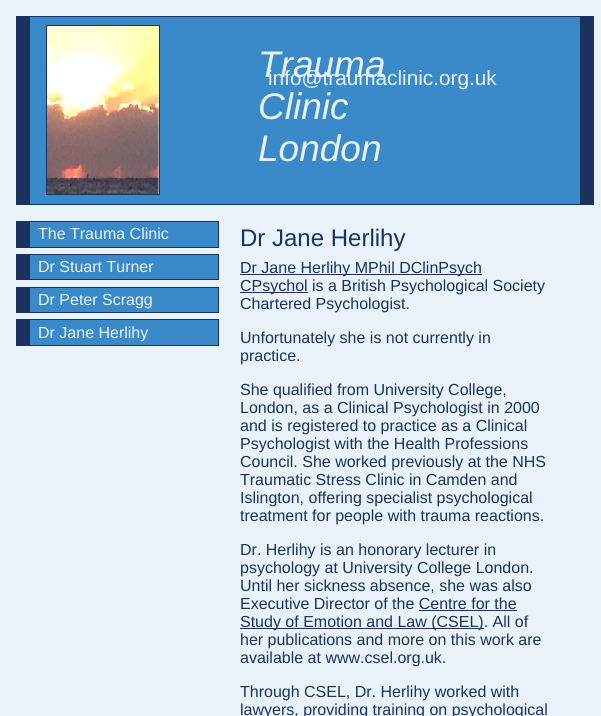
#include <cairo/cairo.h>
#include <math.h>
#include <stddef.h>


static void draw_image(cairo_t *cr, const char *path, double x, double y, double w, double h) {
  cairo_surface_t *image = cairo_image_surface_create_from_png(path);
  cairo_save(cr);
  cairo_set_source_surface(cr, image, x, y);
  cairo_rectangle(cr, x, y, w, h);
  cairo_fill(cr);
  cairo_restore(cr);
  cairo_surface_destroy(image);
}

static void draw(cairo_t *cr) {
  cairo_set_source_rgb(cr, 233 / 255.0, 242 / 255.0, 249 / 255.0);
  cairo_paint(cr);
  cairo_set_source_rgb(cr, 58 / 255.0, 137 / 255.0, 201 / 255.0);
  cairo_rectangle(cr, 30, 17, 550, 187);
  cairo_fill(cr);
  cairo_set_source_rgb(cr, 27 / 255.0, 50 / 255.0, 95 / 255.0);
  cairo_rectangle(cr, 30, 16, 550, 1);
  cairo_fill(cr);
  cairo_rectangle(cr, 580, 16, 14, 188);
  cairo_fill(cr);
  cairo_rectangle(cr, 30, 204, 564, 1);
  cairo_fill(cr);
  cairo_rectangle(cr, 16, 16, 14, 189);
  cairo_fill(cr);
  cairo_rectangle(cr, 46.5, 25.5, 113, 169);
  cairo_set_line_width(cr, 1);
  cairo_stroke(cr);
  draw_image(cr, "images/1.png", 47, 26, 112, 168);
  cairo_set_source_rgb(cr, 58 / 255.0, 137 / 255.0, 201 / 255.0);
  cairo_rectangle(cr, 30, 222, 188, 25);
  cairo_fill(cr);
  cairo_set_source_rgb(cr, 27 / 255.0, 50 / 255.0, 95 / 255.0);
  cairo_rectangle(cr, 30, 221, 189, 1);
  cairo_fill(cr);
  cairo_rectangle(cr, 218, 221, 1, 27);
  cairo_fill(cr);
  cairo_rectangle(cr, 30, 247, 189, 1);
  cairo_fill(cr);
  cairo_rectangle(cr, 16, 221, 14, 27);
  cairo_fill(cr);
  cairo_set_source_rgb(cr, 58 / 255.0, 137 / 255.0, 201 / 255.0);
  cairo_rectangle(cr, 30, 255, 188, 24);
  cairo_fill(cr);
  cairo_set_source_rgb(cr, 27 / 255.0, 50 / 255.0, 95 / 255.0);
  cairo_rectangle(cr, 30, 254, 189, 1);
  cairo_fill(cr);
  cairo_rectangle(cr, 218, 254, 1, 26);
  cairo_fill(cr);
  cairo_rectangle(cr, 30, 279, 189, 1);
  cairo_fill(cr);
  cairo_rectangle(cr, 16, 254, 14, 26);
  cairo_fill(cr);
  cairo_set_source_rgb(cr, 58 / 255.0, 137 / 255.0, 201 / 255.0);
  cairo_rectangle(cr, 30, 288, 188, 24);
  cairo_fill(cr);
  cairo_set_source_rgb(cr, 27 / 255.0, 50 / 255.0, 95 / 255.0);
  cairo_rectangle(cr, 30, 287, 189, 1);
  cairo_fill(cr);
  cairo_rectangle(cr, 218, 287, 1, 26);
  cairo_fill(cr);
  cairo_rectangle(cr, 30, 312, 189, 1);
  cairo_fill(cr);
  cairo_rectangle(cr, 16, 287, 14, 26);
  cairo_fill(cr);
  cairo_set_source_rgb(cr, 58 / 255.0, 137 / 255.0, 201 / 255.0);
  cairo_rectangle(cr, 30, 320, 188, 25);
  cairo_fill(cr);
  cairo_set_source_rgb(cr, 27 / 255.0, 50 / 255.0, 95 / 255.0);
  cairo_rectangle(cr, 30, 319, 189, 1);
  cairo_fill(cr);
  cairo_rectangle(cr, 218, 319, 1, 27);
  cairo_fill(cr);
  cairo_rectangle(cr, 30, 345, 189, 1);
  cairo_fill(cr);
  cairo_rectangle(cr, 16, 319, 14, 27);
  cairo_fill(cr);
  cairo_rectangle(cr, 240, 274, 242, 1);
  cairo_fill(cr);
  cairo_rectangle(cr, 240, 292, 68, 1);
  cairo_fill(cr);
  cairo_rectangle(cr, 419, 610, 98, 1);
  cairo_fill(cr);
  cairo_rectangle(cr, 240, 628, 244, 1);
  cairo_fill(cr);
  cairo_select_font_face(cr, "Liberation Sans", CAIRO_FONT_SLANT_ITALIC, CAIRO_FONT_WEIGHT_NORMAL);
  cairo_set_font_size(cr, 37);
  cairo_set_source_rgb(cr, 233 / 255.0, 242 / 255.0, 249 / 255.0);
  cairo_move_to(cr, 258, 119);
  cairo_show_text(cr, "Clinic");
  cairo_move_to(cr, 258, 161);
  cairo_show_text(cr, "London");
  cairo_select_font_face(cr, "Liberation Sans", CAIRO_FONT_SLANT_NORMAL, CAIRO_FONT_WEIGHT_NORMAL);
  cairo_set_font_size(cr, 20.75);
  cairo_move_to(cr, 268, 85);
  cairo_show_text(cr, "info@traumaclinic.org.uk");
  cairo_select_font_face(cr, "Liberation Sans", CAIRO_FONT_SLANT_ITALIC, CAIRO_FONT_WEIGHT_NORMAL);
  cairo_set_font_size(cr, 37);
  cairo_move_to(cr, 258, 77);
  cairo_show_text(cr, "Trauma");
  cairo_select_font_face(cr, "Liberation Sans", CAIRO_FONT_SLANT_NORMAL, CAIRO_FONT_WEIGHT_NORMAL);
  cairo_set_font_size(cr, 16);
  cairo_move_to(cr, 38, 239);
  cairo_show_text(cr, "The Trauma Clinic");
  cairo_move_to(cr, 38, 272);
  cairo_show_text(cr, "Dr Stuart Turner");
  cairo_move_to(cr, 38, 305);
  cairo_show_text(cr, "Dr Peter Scragg");
  cairo_move_to(cr, 38, 338);
  cairo_show_text(cr, "Dr Jane Herlihy");
  cairo_set_font_size(cr, 24);
  cairo_set_source_rgb(cr, 27 / 255.0, 50 / 255.0, 95 / 255.0);
  cairo_move_to(cr, 240, 246);
  cairo_show_text(cr, "Dr Jane Herlihy");
  cairo_set_font_size(cr, 16);
  cairo_move_to(cr, 240, 273);
  cairo_show_text(cr, "Dr Jane Herlihy MPhil DClinPsych");
  cairo_move_to(cr, 240, 291);
  cairo_show_text(cr, "CPsychol is a British Psychological Society");
  cairo_move_to(cr, 240, 309);
  cairo_show_text(cr, "Chartered Psychologist.");
  cairo_move_to(cr, 240, 343);
  cairo_show_text(cr, "Unfortunately she is not currently in");
  cairo_move_to(cr, 240, 361);
  cairo_show_text(cr, "practice.");
  cairo_move_to(cr, 240, 395);
  cairo_show_text(cr, "She qualified from University College,");
  cairo_move_to(cr, 240, 413);
  cairo_show_text(cr, "London, as a Clinical Psychologist in 2000");
  cairo_move_to(cr, 240, 431);
  cairo_show_text(cr, "and is registered to practice as a Clinical");
  cairo_move_to(cr, 240, 449);
  cairo_show_text(cr, "Psychologist with the Health Professions");
  cairo_move_to(cr, 240, 467);
  cairo_show_text(cr, "Council. She worked previously at the NHS");
  cairo_move_to(cr, 240, 485);
  cairo_show_text(cr, "Traumatic Stress Clinic in Camden and");
  cairo_move_to(cr, 240, 503);
  cairo_show_text(cr, "Islington, offering specialist psychological");
  cairo_move_to(cr, 240, 521);
  cairo_show_text(cr, "treatment for people with trauma reactions.");
  cairo_move_to(cr, 240, 555);
  cairo_show_text(cr, "Dr. Herlihy is an honorary lecturer in");
  cairo_move_to(cr, 240, 573);
  cairo_show_text(cr, "psychology at University College London.");
  cairo_move_to(cr, 240, 591);
  cairo_show_text(cr, "Until her sickness absence, she was also");
  cairo_move_to(cr, 240, 609);
  cairo_show_text(cr, "Executive Director of the Centre for the");
  cairo_move_to(cr, 240, 627);
  cairo_show_text(cr, "Study of Emotion and Law (CSEL). All of");
  cairo_move_to(cr, 240, 645);
  cairo_show_text(cr, "her publications and more on this work are");
  cairo_move_to(cr, 240, 663);
  cairo_show_text(cr, "available at www.csel.org.uk.");
  cairo_move_to(cr, 240, 697);
  cairo_show_text(cr, "Through CSEL, Dr. Herlihy worked with");
  cairo_move_to(cr, 240, 715);
  cairo_show_text(cr, "lawyers, providing training on psychological");
}

int main(void) {
  cairo_surface_t *surface = cairo_image_surface_create(CAIRO_FORMAT_RGB24, 601, 716);
  cairo_t *cr = cairo_create(surface);
  cairo_font_options_t *options = cairo_font_options_create();
  cairo_font_options_set_hint_metrics(options, CAIRO_HINT_METRICS_OFF);
  cairo_font_options_set_hint_style(options, CAIRO_HINT_STYLE_NONE);
  cairo_set_font_options(cr, options);
  cairo_set_miter_limit(cr, 4);
  draw(cr);
  cairo_surface_write_to_png(surface, "out.png");
  cairo_font_options_destroy(options);
  cairo_destroy(cr);
  cairo_surface_destroy(surface);
  return 0;
}
